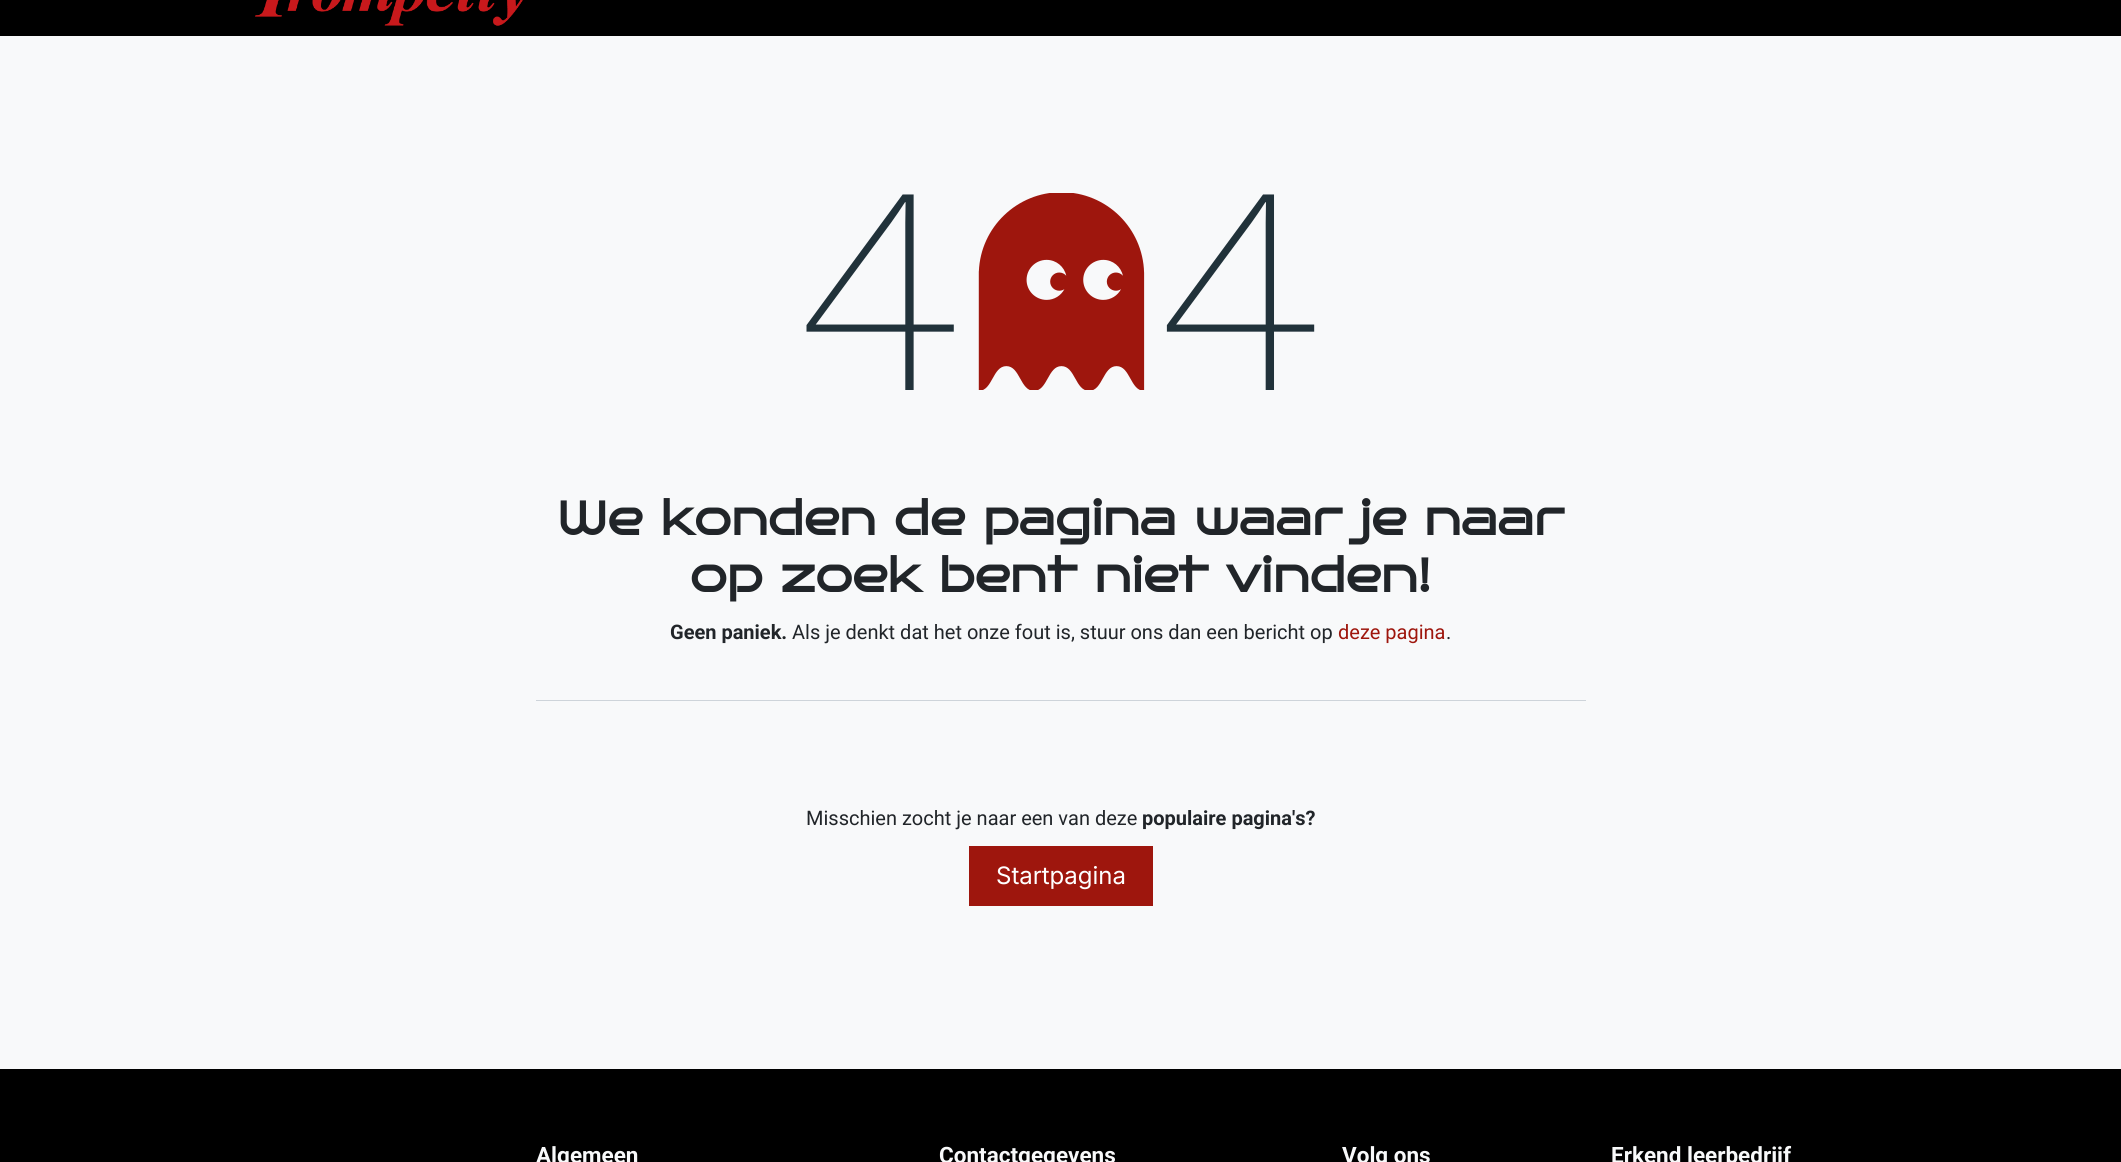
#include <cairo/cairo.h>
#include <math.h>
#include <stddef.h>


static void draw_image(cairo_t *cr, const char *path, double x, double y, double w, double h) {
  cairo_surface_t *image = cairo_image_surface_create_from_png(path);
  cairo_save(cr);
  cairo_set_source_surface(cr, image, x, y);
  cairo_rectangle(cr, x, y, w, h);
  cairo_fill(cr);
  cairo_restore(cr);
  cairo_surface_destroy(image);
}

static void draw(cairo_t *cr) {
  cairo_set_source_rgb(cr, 0, 0, 0);
  cairo_paint(cr);
  draw_image(cr, "images/1.png", 255, 0, 268, 26);
  cairo_set_source_rgb(cr, 248 / 255.0, 249 / 255.0, 250 / 255.0);
  cairo_rectangle(cr, 0, 36, 2121, 1033);
  cairo_fill(cr);
  draw_image(cr, "images/2.png", 806, 193, 509, 197);
  cairo_set_source_rgb(cr, 206 / 255.0, 212 / 255.0, 218 / 255.0);
  cairo_rectangle(cr, 536, 700, 1050, 1);
  cairo_fill(cr);
  cairo_set_source_rgb(cr, 158 / 255.0, 22 / 255.0, 13 / 255.0);
  cairo_rectangle(cr, 970.5, 847.5, 181, 57);
  cairo_fill_preserve(cr);
  cairo_set_line_width(cr, 3);
  cairo_stroke(cr);
  cairo_select_font_face(cr, "Bruno Ace", CAIRO_FONT_SLANT_NORMAL, CAIRO_FONT_WEIGHT_BOLD);
  cairo_set_font_size(cr, 47.5);
  cairo_set_source_rgb(cr, 33 / 255.0, 37 / 255.0, 41 / 255.0);
  cairo_move_to(cr, 557, 535);
  cairo_show_text(cr, "We konden de pagina waar je naar");
  cairo_move_to(cr, 690, 592);
  cairo_show_text(cr, "op zoek bent niet vinden!");
  cairo_select_font_face(cr, "Roboto", CAIRO_FONT_SLANT_NORMAL, CAIRO_FONT_WEIGHT_BOLD);
  cairo_set_font_size(cr, 20);
  cairo_move_to(cr, 670, 639);
  cairo_show_text(cr, "Geen paniek.");
  cairo_select_font_face(cr, "Roboto", CAIRO_FONT_SLANT_NORMAL, CAIRO_FONT_WEIGHT_NORMAL);
  cairo_move_to(cr, 792, 639);
  cairo_show_text(cr, "Als je denkt dat het onze fout is, stuur ons dan een bericht op");
  cairo_set_source_rgb(cr, 158 / 255.0, 22 / 255.0, 13 / 255.0);
  cairo_move_to(cr, 1338, 639);
  cairo_show_text(cr, "deze pagina");
  cairo_set_source_rgb(cr, 33 / 255.0, 37 / 255.0, 41 / 255.0);
  cairo_move_to(cr, 1446, 639);
  cairo_show_text(cr, ".");
  cairo_move_to(cr, 806, 825);
  cairo_show_text(cr, "Misschien zocht je naar een van deze");
  cairo_select_font_face(cr, "Roboto", CAIRO_FONT_SLANT_NORMAL, CAIRO_FONT_WEIGHT_BOLD);
  cairo_move_to(cr, 1142, 825);
  cairo_show_text(cr, "populaire pagina's?");
  cairo_select_font_face(cr, "Inter", CAIRO_FONT_SLANT_NORMAL, CAIRO_FONT_WEIGHT_NORMAL);
  cairo_set_font_size(cr, 24);
  cairo_set_source_rgb(cr, 1, 1, 1);
  cairo_move_to(cr, 996, 884);
  cairo_show_text(cr, "Startpagina");
  cairo_select_font_face(cr, "Roboto", CAIRO_FONT_SLANT_NORMAL, CAIRO_FONT_WEIGHT_BOLD);
  cairo_set_font_size(cr, 22.5);
  cairo_set_source_rgb(cr, 248 / 255.0, 249 / 255.0, 250 / 255.0);
  cairo_move_to(cr, 536, 1163);
  cairo_show_text(cr, "Algemeen");
  cairo_move_to(cr, 939, 1163);
  cairo_show_text(cr, "Contactgegevens");
  cairo_move_to(cr, 1342, 1163);
  cairo_show_text(cr, "Volg ons");
  cairo_move_to(cr, 1611, 1163);
  cairo_show_text(cr, "Erkend leerbedrijf");
}

int main(void) {
  cairo_surface_t *surface = cairo_image_surface_create(CAIRO_FORMAT_RGB24, 2121, 1162);
  cairo_t *cr = cairo_create(surface);
  cairo_font_options_t *options = cairo_font_options_create();
  cairo_font_options_set_hint_metrics(options, CAIRO_HINT_METRICS_OFF);
  cairo_font_options_set_hint_style(options, CAIRO_HINT_STYLE_NONE);
  cairo_set_font_options(cr, options);
  cairo_set_miter_limit(cr, 4);
  draw(cr);
  cairo_surface_write_to_png(surface, "out.png");
  cairo_font_options_destroy(options);
  cairo_destroy(cr);
  cairo_surface_destroy(surface);
  return 0;
}
